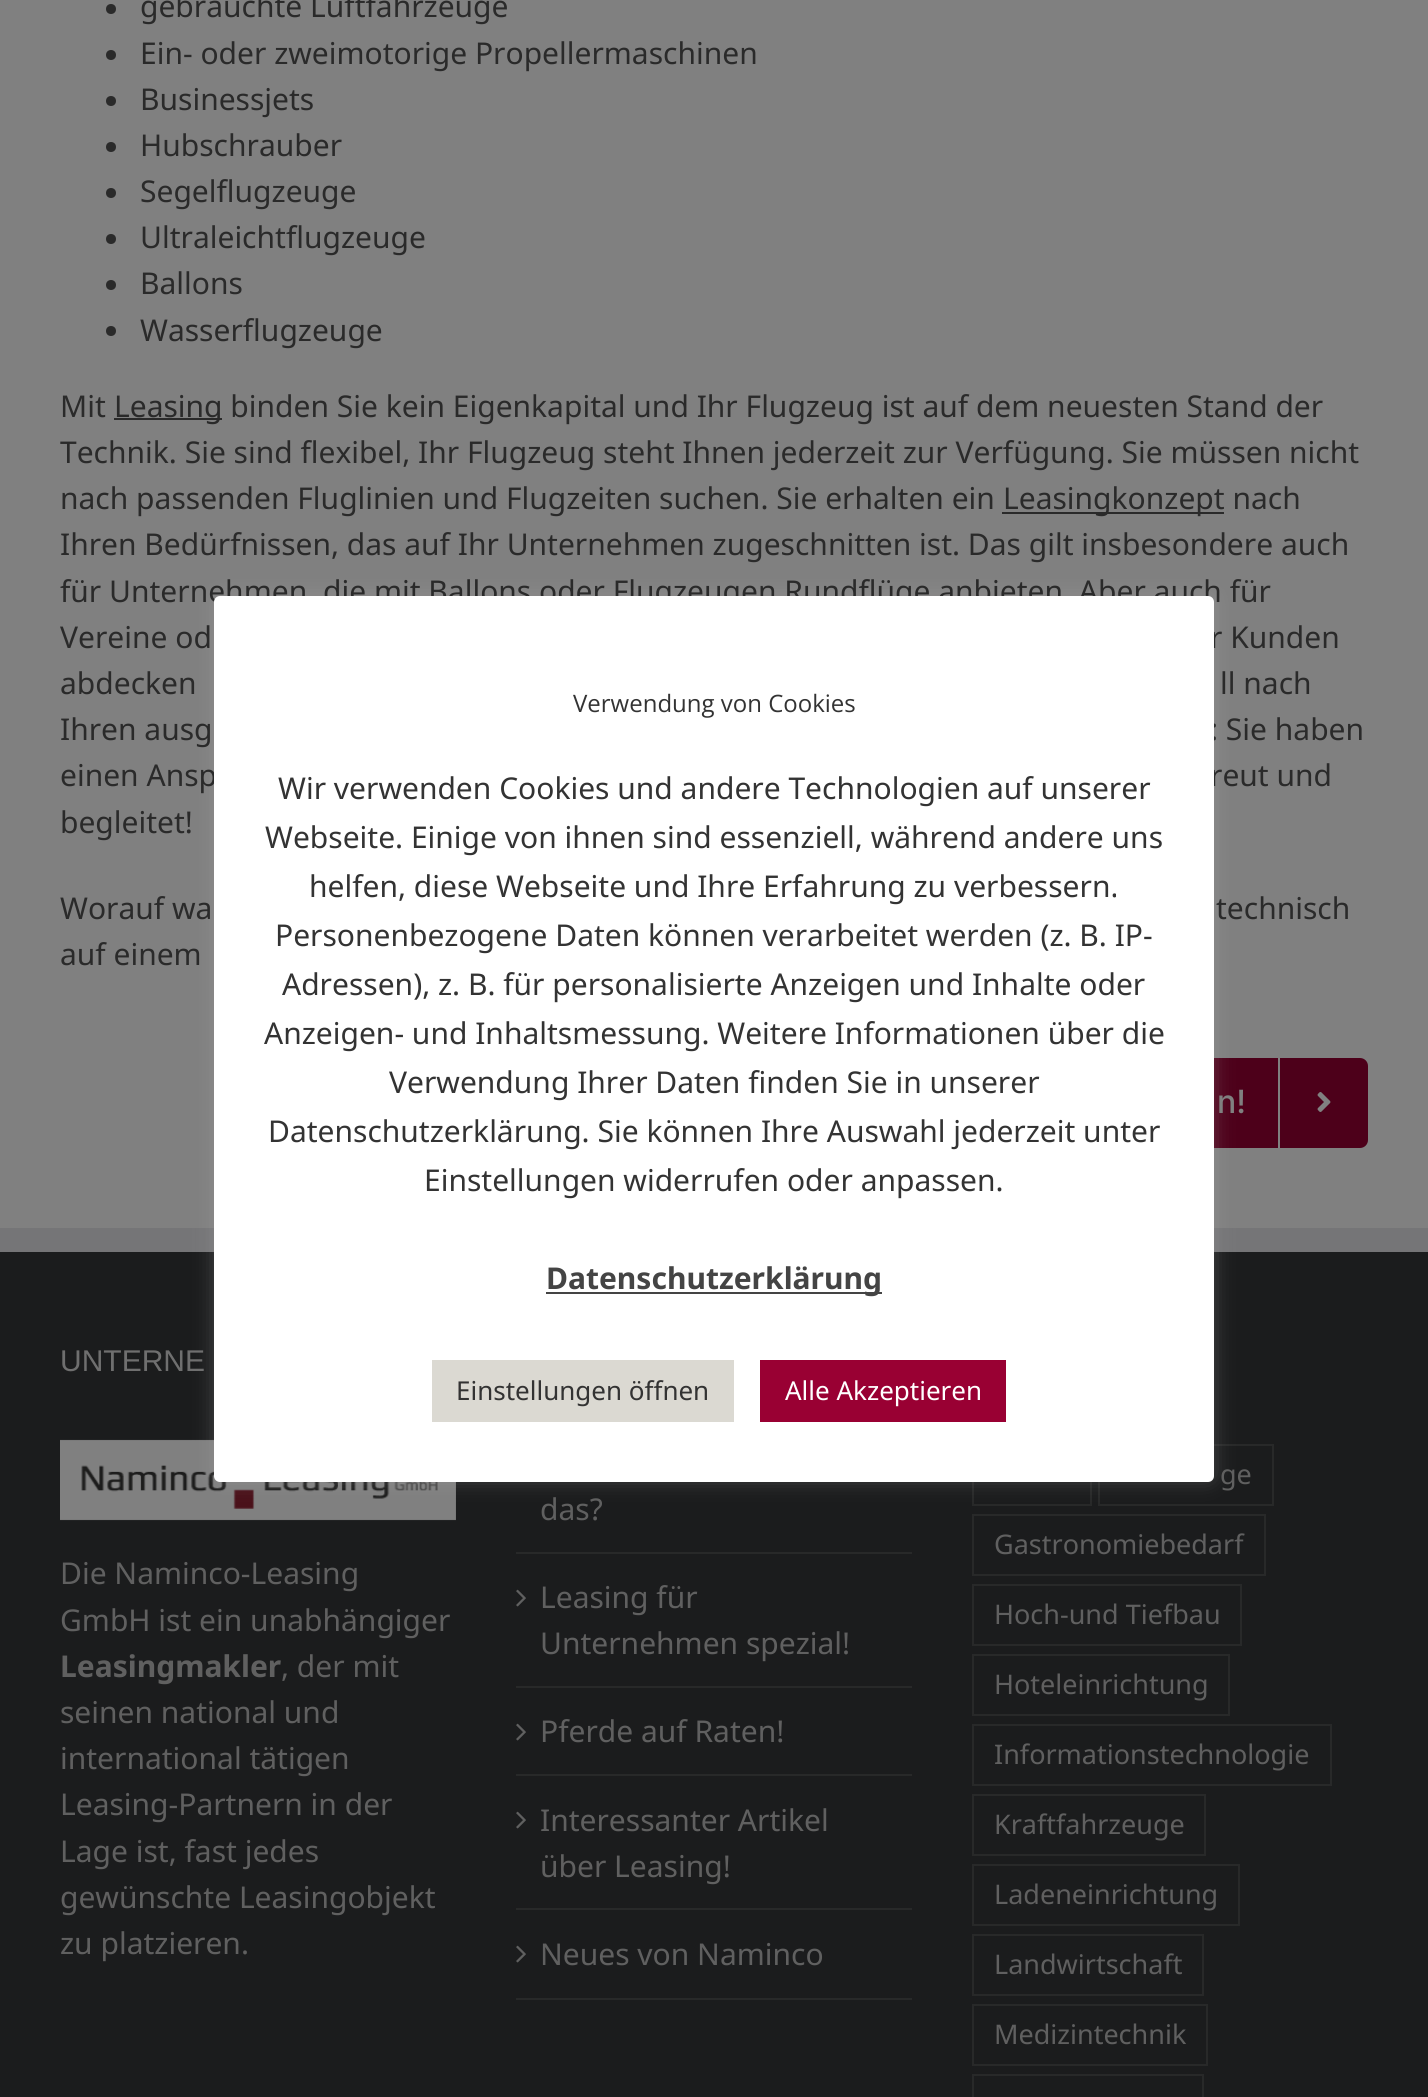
#include <cairo/cairo.h>
#include <math.h>
#include <stddef.h>


static void rounded_rect(cairo_t *cr, double x, double y, double w, double h, double r) {
  cairo_new_sub_path(cr);
  cairo_arc(cr, x + w - r, y + h - r, r, 0, M_PI / 2);
  cairo_arc(cr, x + r, y + h - r, r, M_PI / 2, M_PI);
  cairo_arc(cr, x + r, y + r, r, M_PI, 1.5 * M_PI);
  cairo_arc(cr, x + w - r, y + r, r, 1.5 * M_PI, 2 * M_PI);
  cairo_close_path(cr);
}

static void draw_shadow(cairo_t *cr, double x, double y, double w, double h, double r, double blur, double alpha) {
  cairo_push_group_with_content(cr, CAIRO_CONTENT_ALPHA);
  cairo_set_operator(cr, CAIRO_OPERATOR_SOURCE);
  for (int i = 15; i >= -15 && fmin(w, h) + blur * i / 3 > 0; i -= 2) {
    double e = blur * i / 6;
    cairo_set_source_rgba(cr, 0, 0, 0, alpha * erfc((i - 1) / 8.5) / 2);
    rounded_rect(cr, x - e, y - e, w + 2 * e, h + 2 * e, fmax(0, fmin(r + e + blur * .6, fmin(w, h) / 2 + e)));
    cairo_fill(cr);
  }
  cairo_pattern_t *soft = cairo_pop_group(cr);
  cairo_mask(cr, soft);
  cairo_pattern_destroy(soft);
}

static void draw_image(cairo_t *cr, const char *path, double x, double y, double w, double h) {
  cairo_surface_t *image = cairo_image_surface_create_from_png(path);
  cairo_save(cr);
  cairo_set_source_surface(cr, image, x, y);
  cairo_rectangle(cr, x, y, w, h);
  cairo_fill(cr);
  cairo_restore(cr);
  cairo_surface_destroy(image);
}

static void draw(cairo_t *cr) {
  cairo_set_source_rgb(cr, 128 / 255.0, 128 / 255.0, 128 / 255.0);
  cairo_paint(cr);
  cairo_set_source_rgb(cr, 42 / 255.0, 42 / 255.0, 42 / 255.0);
  cairo_arc(cr, 111, 9, 5, 0, 2 * M_PI);
  cairo_fill(cr);
  cairo_arc(cr, 111, 55, 5, 0, 2 * M_PI);
  cairo_fill(cr);
  cairo_arc(cr, 111, 101, 5, 0, 2 * M_PI);
  cairo_fill(cr);
  cairo_arc(cr, 111, 147, 5, 0, 2 * M_PI);
  cairo_fill(cr);
  cairo_arc(cr, 111, 193, 5, 0, 2 * M_PI);
  cairo_fill(cr);
  cairo_arc(cr, 111, 239, 5, 0, 2 * M_PI);
  cairo_fill(cr);
  cairo_arc(cr, 111, 285, 5, 0, 2 * M_PI);
  cairo_fill(cr);
  cairo_arc(cr, 111, 331, 5, 0, 2 * M_PI);
  cairo_fill(cr);
  cairo_rectangle(cr, 114, 418, 108, 2);
  cairo_fill(cr);
  cairo_rectangle(cr, 1002, 512, 222, 2);
  cairo_fill(cr);
  cairo_set_source_rgb(cr, 77 / 255.0, 0, 26 / 255.0);
  rounded_rect(cr, 726, 1058, 642, 90, 8);
  cairo_fill(cr);
  cairo_set_source_rgb(cr, 128 / 255.0, 128 / 255.0, 128 / 255.0);
  cairo_rectangle(cr, 1278, 1058, 2, 90);
  cairo_fill(cr);
  draw_image(cr, "images/1.png", 1317, 1092, 14, 20);
  cairo_set_source_rgb(cr, 27 / 255.0, 28 / 255.0, 29 / 255.0);
  cairo_rectangle(cr, 0, 1252, 1428, 845);
  cairo_fill(cr);
  cairo_set_source_rgb(cr, 117 / 255.0, 117 / 255.0, 119 / 255.0);
  cairo_rectangle(cr, 0, 1228, 1428, 24);
  cairo_fill(cr);
  draw_image(cr, "images/2.png", 60, 1439, 396, 82);
  cairo_set_source_rgb(cr, 40 / 255.0, 41 / 255.0, 41 / 255.0);
  cairo_rectangle(cr, 516, 1552, 396, 2);
  cairo_fill(cr);
  cairo_rectangle(cr, 516, 1686, 396, 2);
  cairo_fill(cr);
  draw_image(cr, "images/3.png", 516, 1589, 10, 18);
  cairo_rectangle(cr, 516, 1774, 396, 2);
  cairo_fill(cr);
  draw_image(cr, "images/3.png", 516, 1723, 10, 18);
  cairo_rectangle(cr, 516, 1908, 396, 2);
  cairo_fill(cr);
  draw_image(cr, "images/3.png", 516, 1811, 10, 18);
  cairo_rectangle(cr, 516, 1998, 396, 2);
  cairo_fill(cr);
  draw_image(cr, "images/3.png", 516, 1945, 10, 18);
  cairo_rectangle(cr, 973, 1445, 118, 60);
  cairo_stroke(cr);
  cairo_rectangle(cr, 1099, 1445, 174, 60);
  cairo_stroke(cr);
  cairo_rectangle(cr, 973, 1515, 292, 60);
  cairo_stroke(cr);
  cairo_rectangle(cr, 973, 1585, 268, 60);
  cairo_stroke(cr);
  cairo_rectangle(cr, 973, 1655, 256, 60);
  cairo_stroke(cr);
  cairo_rectangle(cr, 973, 1725, 358, 60);
  cairo_stroke(cr);
  cairo_rectangle(cr, 973, 1795, 232, 60);
  cairo_stroke(cr);
  cairo_rectangle(cr, 973, 1865, 266, 60);
  cairo_stroke(cr);
  cairo_rectangle(cr, 973, 1935, 230, 60);
  cairo_stroke(cr);
  cairo_rectangle(cr, 973, 2005, 234, 60);
  cairo_stroke(cr);
  cairo_rectangle(cr, 973, 2075, 230, 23);
  cairo_stroke(cr);
  cairo_set_source_rgb(cr, 172 / 255.0, 171 / 255.0, 171 / 255.0);
  draw_shadow(cr, 214, 594, 1000, 886, 6, 10, 0.3);
  cairo_select_font_face(cr, "Noto Sans", CAIRO_FONT_SLANT_NORMAL, CAIRO_FONT_WEIGHT_NORMAL);
  cairo_set_font_size(cr, 30);
  cairo_set_source_rgb(cr, 42 / 255.0, 42 / 255.0, 42 / 255.0);
  cairo_move_to(cr, 140, 17);
  cairo_show_text(cr, "gebrauchte Luftfahrzeuge");
  cairo_move_to(cr, 140, 64);
  cairo_show_text(cr, "Ein- oder zweimotorige Propellermaschinen");
  cairo_move_to(cr, 140, 110);
  cairo_show_text(cr, "Businessjets");
  cairo_move_to(cr, 140, 156);
  cairo_show_text(cr, "Hubschrauber");
  cairo_move_to(cr, 140, 202);
  cairo_show_text(cr, "Segelflugzeuge");
  cairo_move_to(cr, 140, 248);
  cairo_show_text(cr, "Ultraleichtflugzeuge");
  cairo_move_to(cr, 140, 294);
  cairo_show_text(cr, "Ballons");
  cairo_move_to(cr, 140, 341);
  cairo_show_text(cr, "Wasserflugzeuge");
  cairo_move_to(cr, 60, 417);
  cairo_show_text(cr, "Mit");
  cairo_move_to(cr, 114, 417);
  cairo_show_text(cr, "Leasing binden Sie kein Eigenkapital und Ihr Flugzeug ist auf dem neuesten Stand der");
  cairo_move_to(cr, 60, 463);
  cairo_show_text(cr, "Technik. Sie sind flexibel, Ihr Flugzeug steht Ihnen jederzeit zur Verfügung. Sie müssen nicht");
  cairo_move_to(cr, 60, 509);
  cairo_show_text(cr, "nach passenden Fluglinien und Flugzeiten suchen. Sie erhalten ein");
  cairo_move_to(cr, 1003, 509);
  cairo_show_text(cr, "Leasingkonzept nach");
  cairo_move_to(cr, 60, 555);
  cairo_show_text(cr, "Ihren Bedürfnissen, das auf Ihr Unternehmen zugeschnitten ist. Das gilt insbesondere auch");
  cairo_move_to(cr, 60, 602);
  cairo_show_text(cr, "für Unternehmen, die mit Ballons oder Flugzeugen Rundflüge anbieten. Aber auch für");
  cairo_move_to(cr, 60, 648);
  cairo_show_text(cr, "Vereine od");
  cairo_move_to(cr, 1210, 648);
  cairo_show_text(cr, "r Kunden");
  cairo_move_to(cr, 60, 694);
  cairo_show_text(cr, "abdecken");
  cairo_move_to(cr, 1220, 694);
  cairo_show_text(cr, "ll nach");
  cairo_move_to(cr, 60, 740);
  cairo_show_text(cr, "Ihren ausg");
  cairo_move_to(cr, 1210, 740);
  cairo_show_text(cr, ": Sie haben");
  cairo_move_to(cr, 60, 786);
  cairo_show_text(cr, "einen Ansp");
  cairo_move_to(cr, 1210, 786);
  cairo_show_text(cr, "reut und");
  cairo_move_to(cr, 60, 833);
  cairo_show_text(cr, "begleitet!");
  cairo_move_to(cr, 60, 919);
  cairo_show_text(cr, "Worauf wa");
  cairo_move_to(cr, 1216, 919);
  cairo_show_text(cr, "technisch");
  cairo_move_to(cr, 60, 965);
  cairo_show_text(cr, "auf einem");
  cairo_select_font_face(cr, "Inter Medium", CAIRO_FONT_SLANT_NORMAL, CAIRO_FONT_WEIGHT_NORMAL);
  cairo_set_font_size(cr, 32);
  cairo_set_source_rgb(cr, 128 / 255.0, 128 / 255.0, 128 / 255.0);
  cairo_move_to(cr, 1217, 1113);
  cairo_show_text(cr, "n!");
  cairo_select_font_face(cr, "Liberation Sans", CAIRO_FONT_SLANT_NORMAL, CAIRO_FONT_WEIGHT_NORMAL);
  cairo_set_font_size(cr, 30);
  cairo_set_source_rgb(cr, 111 / 255.0, 111 / 255.0, 111 / 255.0);
  cairo_move_to(cr, 60, 1371);
  cairo_show_text(cr, "UNTERNE");
  cairo_select_font_face(cr, "Noto Sans", CAIRO_FONT_SLANT_NORMAL, CAIRO_FONT_WEIGHT_NORMAL);
  cairo_set_source_rgb(cr, 96 / 255.0, 96 / 255.0, 96 / 255.0);
  cairo_move_to(cr, 60, 1584);
  cairo_show_text(cr, "Die Naminco-Leasing");
  cairo_move_to(cr, 60, 1631);
  cairo_show_text(cr, "GmbH ist ein unabhängiger");
  cairo_select_font_face(cr, "Noto Sans", CAIRO_FONT_SLANT_NORMAL, CAIRO_FONT_WEIGHT_BOLD);
  cairo_move_to(cr, 60, 1677);
  cairo_show_text(cr, "Leasingmakler");
  cairo_select_font_face(cr, "Noto Sans", CAIRO_FONT_SLANT_NORMAL, CAIRO_FONT_WEIGHT_NORMAL);
  cairo_move_to(cr, 281, 1677);
  cairo_show_text(cr, ", der mit");
  cairo_move_to(cr, 60, 1723);
  cairo_show_text(cr, "seinen national und");
  cairo_move_to(cr, 60, 1769);
  cairo_show_text(cr, "international tätigen");
  cairo_move_to(cr, 60, 1815);
  cairo_show_text(cr, "Leasing-Partnern in der");
  cairo_move_to(cr, 60, 1862);
  cairo_show_text(cr, "Lage ist, fast jedes");
  cairo_move_to(cr, 60, 1908);
  cairo_show_text(cr, "gewünschte Leasingobjekt");
  cairo_move_to(cr, 60, 1954);
  cairo_show_text(cr, "zu platzieren.");
  cairo_move_to(cr, 540, 1520);
  cairo_show_text(cr, "das?");
  cairo_move_to(cr, 540, 1608);
  cairo_show_text(cr, "Leasing für");
  cairo_move_to(cr, 540, 1654);
  cairo_show_text(cr, "Unternehmen spezial!");
  cairo_move_to(cr, 540, 1742);
  cairo_show_text(cr, "Pferde auf Raten!");
  cairo_move_to(cr, 540, 1831);
  cairo_show_text(cr, "Interessanter Artikel");
  cairo_move_to(cr, 540, 1877);
  cairo_show_text(cr, "über Leasing!");
  cairo_move_to(cr, 540, 1965);
  cairo_show_text(cr, "Neues von Naminco");
  cairo_set_font_size(cr, 27);
  cairo_move_to(cr, 1220, 1484);
  cairo_show_text(cr, "ge");
  cairo_move_to(cr, 994, 1554);
  cairo_show_text(cr, "Gastronomiebedarf");
  cairo_move_to(cr, 994, 1624);
  cairo_show_text(cr, "Hoch-und Tiefbau");
  cairo_move_to(cr, 994, 1694);
  cairo_show_text(cr, "Hoteleinrichtung");
  cairo_move_to(cr, 994, 1764);
  cairo_show_text(cr, "Informationstechnologie");
  cairo_move_to(cr, 994, 1834);
  cairo_show_text(cr, "Kraftfahrzeuge");
  cairo_move_to(cr, 994, 1904);
  cairo_show_text(cr, "Ladeneinrichtung");
  cairo_move_to(cr, 994, 1974);
  cairo_show_text(cr, "Landwirtschaft");
  cairo_move_to(cr, 994, 2044);
  cairo_show_text(cr, "Medizintechnik");
  cairo_set_source_rgb(cr, 1, 1, 1);
  rounded_rect(cr, 214, 596, 1000, 886, 6);
  cairo_fill(cr);
  cairo_select_font_face(cr, "Open Sans", CAIRO_FONT_SLANT_NORMAL, CAIRO_FONT_WEIGHT_NORMAL);
  cairo_set_font_size(cr, 24);
  cairo_set_source_rgb(cr, 51 / 255.0, 51 / 255.0, 51 / 255.0);
  cairo_move_to(cr, 573, 712);
  cairo_show_text(cr, "Verwendung von Cookies");
  cairo_select_font_face(cr, "Noto Sans", CAIRO_FONT_SLANT_NORMAL, CAIRO_FONT_WEIGHT_NORMAL);
  cairo_set_font_size(cr, 30);
  cairo_move_to(cr, 278, 799);
  cairo_show_text(cr, "Wir verwenden Cookies und andere Technologien auf unserer");
  cairo_move_to(cr, 265, 848);
  cairo_show_text(cr, "Webseite. Einige von ihnen sind essenziell, während andere uns");
  cairo_move_to(cr, 309, 897);
  cairo_show_text(cr, "helfen, diese Webseite und Ihre Erfahrung zu verbessern.");
  cairo_move_to(cr, 275, 946);
  cairo_show_text(cr, "Personenbezogene Daten können verarbeitet werden (z. B. IP-");
  cairo_move_to(cr, 282, 995);
  cairo_show_text(cr, "Adressen), z. B. für personalisierte Anzeigen und Inhalte oder");
  cairo_move_to(cr, 264, 1044);
  cairo_show_text(cr, "Anzeigen- und Inhaltsmessung. Weitere Informationen über die");
  cairo_move_to(cr, 389, 1093);
  cairo_show_text(cr, "Verwendung Ihrer Daten finden Sie in unserer");
  cairo_move_to(cr, 268, 1142);
  cairo_show_text(cr, "Datenschutzerklärung. Sie können Ihre Auswahl jederzeit unter");
  cairo_move_to(cr, 424, 1191);
  cairo_show_text(cr, "Einstellungen widerrufen oder anpassen.");
  cairo_set_source_rgb(cr, 68 / 255.0, 68 / 255.0, 68 / 255.0);
  cairo_rectangle(cr, 546, 1292, 336, 2);
  cairo_fill(cr);
  cairo_select_font_face(cr, "Noto Sans", CAIRO_FONT_SLANT_NORMAL, CAIRO_FONT_WEIGHT_BOLD);
  cairo_move_to(cr, 546, 1289);
  cairo_show_text(cr, "Datenschutzerklärung");
  cairo_set_source_rgb(cr, 219 / 255.0, 217 / 255.0, 210 / 255.0);
  cairo_rectangle(cr, 432, 1360, 302, 62);
  cairo_fill(cr);
  cairo_select_font_face(cr, "Noto Sans", CAIRO_FONT_SLANT_NORMAL, CAIRO_FONT_WEIGHT_NORMAL);
  cairo_set_font_size(cr, 26);
  cairo_set_source_rgb(cr, 51 / 255.0, 51 / 255.0, 51 / 255.0);
  cairo_move_to(cr, 456, 1400);
  cairo_show_text(cr, "Einstellungen öffnen");
  cairo_set_source_rgb(cr, 153 / 255.0, 0, 51 / 255.0);
  cairo_rectangle(cr, 760, 1360, 246, 62);
  cairo_fill(cr);
  cairo_set_source_rgb(cr, 1, 1, 1);
  cairo_move_to(cr, 785, 1400);
  cairo_show_text(cr, "Alle Akzeptieren");
}

int main(void) {
  cairo_surface_t *surface = cairo_image_surface_create(CAIRO_FORMAT_RGB24, 1428, 2097);
  cairo_t *cr = cairo_create(surface);
  cairo_font_options_t *options = cairo_font_options_create();
  cairo_font_options_set_hint_metrics(options, CAIRO_HINT_METRICS_OFF);
  cairo_font_options_set_hint_style(options, CAIRO_HINT_STYLE_NONE);
  cairo_set_font_options(cr, options);
  cairo_set_miter_limit(cr, 4);
  draw(cr);
  cairo_surface_write_to_png(surface, "out.png");
  cairo_font_options_destroy(options);
  cairo_destroy(cr);
  cairo_surface_destroy(surface);
  return 0;
}
